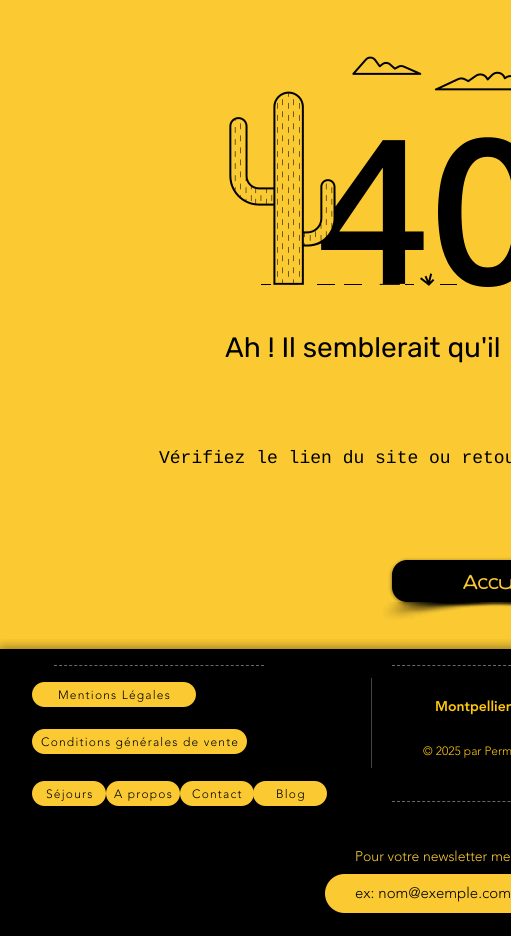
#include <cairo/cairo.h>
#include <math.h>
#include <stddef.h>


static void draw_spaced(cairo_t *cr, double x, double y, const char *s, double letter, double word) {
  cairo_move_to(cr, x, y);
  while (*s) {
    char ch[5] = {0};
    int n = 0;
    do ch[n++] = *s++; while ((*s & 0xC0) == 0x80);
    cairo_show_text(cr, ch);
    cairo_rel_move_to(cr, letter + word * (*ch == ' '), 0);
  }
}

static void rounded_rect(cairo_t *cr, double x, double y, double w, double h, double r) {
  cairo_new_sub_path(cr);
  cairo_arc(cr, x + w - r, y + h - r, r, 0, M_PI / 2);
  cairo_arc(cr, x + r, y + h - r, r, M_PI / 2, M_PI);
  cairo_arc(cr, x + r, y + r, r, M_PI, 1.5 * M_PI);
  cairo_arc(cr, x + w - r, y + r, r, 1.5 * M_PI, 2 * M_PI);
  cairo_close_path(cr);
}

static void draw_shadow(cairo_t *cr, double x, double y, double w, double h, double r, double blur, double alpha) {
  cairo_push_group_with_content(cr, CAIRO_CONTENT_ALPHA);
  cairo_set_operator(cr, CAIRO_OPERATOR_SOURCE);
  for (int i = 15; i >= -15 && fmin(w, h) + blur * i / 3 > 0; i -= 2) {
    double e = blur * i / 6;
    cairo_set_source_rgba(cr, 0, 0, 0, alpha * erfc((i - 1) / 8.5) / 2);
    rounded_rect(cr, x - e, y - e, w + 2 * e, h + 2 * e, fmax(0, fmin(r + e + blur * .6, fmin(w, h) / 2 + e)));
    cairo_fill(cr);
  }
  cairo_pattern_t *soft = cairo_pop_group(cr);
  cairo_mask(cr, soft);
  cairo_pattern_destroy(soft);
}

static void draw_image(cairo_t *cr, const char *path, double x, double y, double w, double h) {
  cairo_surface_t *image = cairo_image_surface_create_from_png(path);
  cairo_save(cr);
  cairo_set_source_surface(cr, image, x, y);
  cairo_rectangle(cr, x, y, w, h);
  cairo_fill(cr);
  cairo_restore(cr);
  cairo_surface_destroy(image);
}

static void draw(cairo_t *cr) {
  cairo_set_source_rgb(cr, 251 / 255.0, 202 / 255.0, 51 / 255.0);
  cairo_paint(cr);
  draw_image(cr, "images/1.png", 229, 56, 282, 231);
  draw_image(cr, "images/2.png", 383, 602, 128, 18);
  draw_image(cr, "images/3.png", 476, 602, 35, 5);
  cairo_set_source_rgb(cr, 0, 0, 0);
  draw_shadow(cr, 392, 561, 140, 42, 15, 2, 0.6);
  cairo_set_source_rgb(cr, 0, 0, 0);
  rounded_rect(cr, 392, 560, 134, 42, 15);
  cairo_fill(cr);
  draw_image(cr, "images/4.png", 0, 639, 35, 10);
  draw_image(cr, "images/5.png", 35, 639, 476, 10);
  cairo_rectangle(cr, 0, 649, 511, 287);
  cairo_fill(cr);
  cairo_new_path(cr);
  cairo_move_to(cr, 54, 665.5);
  cairo_line_to(cr, 264, 665.5);
  cairo_set_source_rgb(cr, 103 / 255.0, 103 / 255.0, 103 / 255.0);
  cairo_set_line_width(cr, 1);
  cairo_set_dash(cr, (double[]){3, 2.05}, 2, 0);
  cairo_stroke(cr);
  cairo_new_path(cr);
  cairo_move_to(cr, 392, 665.5);
  cairo_line_to(cr, 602, 665.5);
  cairo_stroke(cr);
  cairo_set_source_rgb(cr, 251 / 255.0, 202 / 255.0, 51 / 255.0);
  rounded_rect(cr, 32, 682, 164, 25, 12.5);
  cairo_fill(cr);
  cairo_set_source_rgb(cr, 69 / 255.0, 68 / 255.0, 68 / 255.0);
  cairo_rectangle(cr, 371, 678, 1, 90);
  cairo_fill(cr);
  cairo_set_source_rgb(cr, 251 / 255.0, 202 / 255.0, 51 / 255.0);
  rounded_rect(cr, 32, 729, 215, 25, 12.5);
  cairo_fill(cr);
  rounded_rect(cr, 32, 781, 74, 25, 12.5);
  cairo_fill(cr);
  rounded_rect(cr, 106, 781, 74, 25, 12.5);
  cairo_fill(cr);
  rounded_rect(cr, 180, 781, 74, 25, 12.5);
  cairo_fill(cr);
  rounded_rect(cr, 253, 781, 74, 25, 12.5);
  cairo_fill(cr);
  cairo_new_path(cr);
  cairo_move_to(cr, 392, 801.5);
  cairo_line_to(cr, 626, 801.5);
  cairo_set_source_rgb(cr, 103 / 255.0, 103 / 255.0, 103 / 255.0);
  cairo_set_dash(cr, (double[]){3, 2.02}, 2, 0);
  cairo_stroke(cr);
  cairo_set_source_rgb(cr, 251 / 255.0, 202 / 255.0, 51 / 255.0);
  rounded_rect(cr, 325, 874, 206, 39, 19.5);
  cairo_fill(cr);
  cairo_select_font_face(cr, "Rubik", CAIRO_FONT_SLANT_NORMAL, CAIRO_FONT_WEIGHT_NORMAL);
  cairo_set_font_size(cr, 28);
  cairo_set_source_rgb(cr, 0, 0, 0);
  cairo_move_to(cr, 225, 357);
  cairo_show_text(cr, "Ah ! Il semblerait qu'il");
  cairo_select_font_face(cr, "Liberation Mono", CAIRO_FONT_SLANT_NORMAL, CAIRO_FONT_WEIGHT_NORMAL);
  cairo_set_font_size(cr, 18);
  cairo_move_to(cr, 159, 463);
  cairo_show_text(cr, "Vérifiez le lien du site ou retou");
  cairo_select_font_face(cr, "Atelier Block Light", CAIRO_FONT_SLANT_NORMAL, CAIRO_FONT_WEIGHT_NORMAL);
  cairo_set_font_size(cr, 20);
  cairo_set_source_rgb(cr, 251 / 255.0, 202 / 255.0, 51 / 255.0);
  cairo_move_to(cr, 463, 589);
  cairo_show_text(cr, "Accu");
  cairo_select_font_face(cr, "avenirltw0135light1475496 Light", CAIRO_FONT_SLANT_NORMAL, CAIRO_FONT_WEIGHT_NORMAL);
  cairo_set_font_size(cr, 12);
  cairo_set_source_rgb(cr, 0, 0, 0);
  draw_spaced(cr, 58, 699, "Mentions Légales", 1.2, 0);
  cairo_select_font_face(cr, "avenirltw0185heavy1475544 Black", CAIRO_FONT_SLANT_NORMAL, CAIRO_FONT_WEIGHT_NORMAL);
  cairo_set_font_size(cr, 14);
  cairo_set_source_rgb(cr, 1, 200 / 255.0, 12 / 255.0);
  cairo_move_to(cr, 435, 711);
  cairo_show_text(cr, "Montpellier");
  cairo_select_font_face(cr, "avenirltw0135light1475496 Light", CAIRO_FONT_SLANT_NORMAL, CAIRO_FONT_WEIGHT_NORMAL);
  cairo_set_font_size(cr, 12);
  cairo_set_source_rgb(cr, 0, 0, 0);
  draw_spaced(cr, 41, 746, "Conditions générales de vente", 1.2, 0);
  cairo_set_source_rgb(cr, 1, 200 / 255.0, 12 / 255.0);
  cairo_move_to(cr, 423, 755);
  cairo_show_text(cr, "© 2025 par Perm");
  cairo_set_source_rgb(cr, 0, 0, 0);
  draw_spaced(cr, 46, 798, "Séjours", 1.2, 0);
  draw_spaced(cr, 114, 798, "A propos", 1.2, 0);
  draw_spaced(cr, 192, 798, "Contact", 1.2, 0);
  draw_spaced(cr, 276, 798, "Blog", 1.2, 0);
  cairo_set_font_size(cr, 14);
  cairo_set_source_rgb(cr, 251 / 255.0, 202 / 255.0, 51 / 255.0);
  cairo_move_to(cr, 355, 861);
  cairo_show_text(cr, "Pour votre newsletter me");
  cairo_set_font_size(cr, 15);
  cairo_set_source_rgb(cr, 0, 0, 0);
  cairo_move_to(cr, 355, 898);
  cairo_show_text(cr, "ex: nom@exemple.com");
}

int main(void) {
  cairo_surface_t *surface = cairo_image_surface_create(CAIRO_FORMAT_RGB24, 511, 936);
  cairo_t *cr = cairo_create(surface);
  cairo_font_options_t *options = cairo_font_options_create();
  cairo_font_options_set_hint_metrics(options, CAIRO_HINT_METRICS_OFF);
  cairo_font_options_set_hint_style(options, CAIRO_HINT_STYLE_NONE);
  cairo_set_font_options(cr, options);
  cairo_set_miter_limit(cr, 4);
  draw(cr);
  cairo_surface_write_to_png(surface, "out.png");
  cairo_font_options_destroy(options);
  cairo_destroy(cr);
  cairo_surface_destroy(surface);
  return 0;
}
